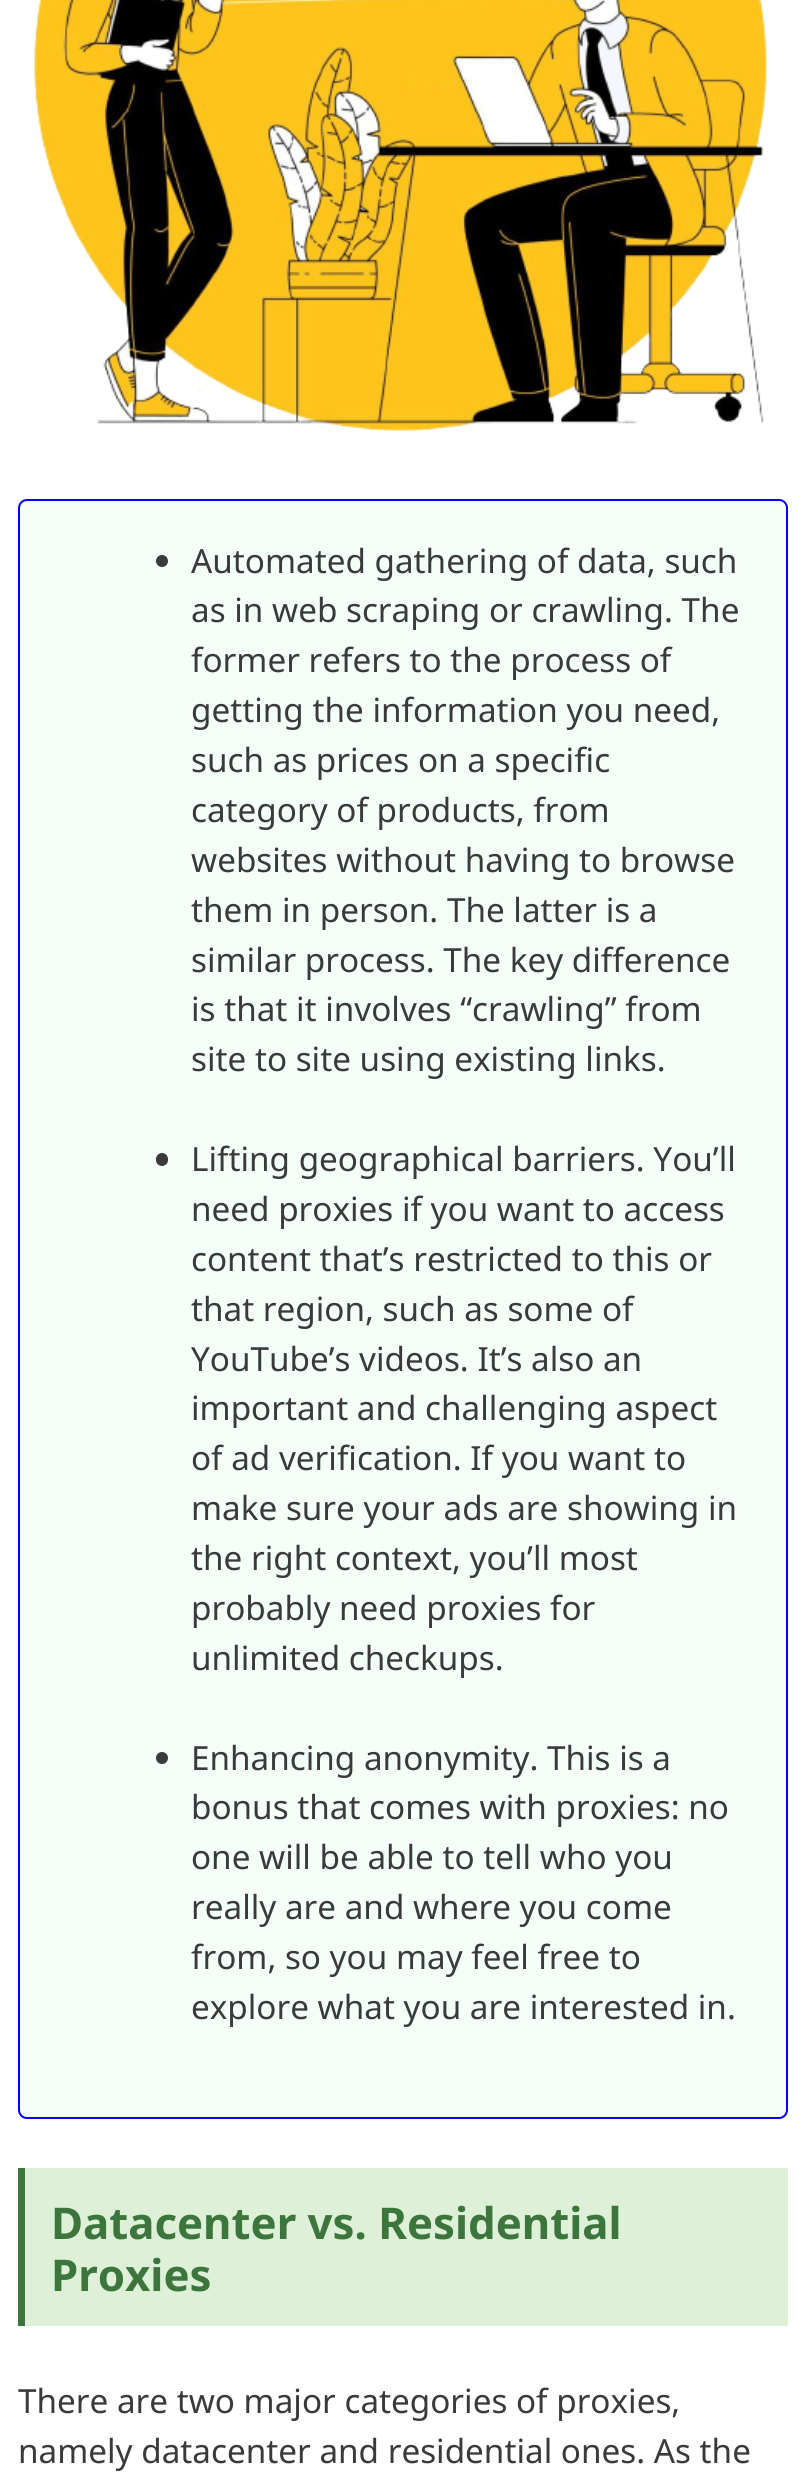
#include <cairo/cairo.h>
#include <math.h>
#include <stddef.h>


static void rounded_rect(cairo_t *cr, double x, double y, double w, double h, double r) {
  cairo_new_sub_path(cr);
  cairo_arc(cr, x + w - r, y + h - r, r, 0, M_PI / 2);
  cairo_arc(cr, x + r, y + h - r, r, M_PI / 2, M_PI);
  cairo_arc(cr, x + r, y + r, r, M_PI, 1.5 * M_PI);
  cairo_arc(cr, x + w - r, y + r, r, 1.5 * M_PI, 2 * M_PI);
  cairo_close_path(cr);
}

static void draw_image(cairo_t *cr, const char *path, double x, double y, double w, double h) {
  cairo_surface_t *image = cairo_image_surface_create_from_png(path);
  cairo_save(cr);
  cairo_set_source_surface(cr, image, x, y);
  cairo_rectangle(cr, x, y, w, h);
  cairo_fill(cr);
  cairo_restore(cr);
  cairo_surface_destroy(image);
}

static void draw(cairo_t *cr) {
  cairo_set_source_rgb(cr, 1, 1, 1);
  cairo_paint(cr);
  draw_image(cr, "images/1.png", 34, 0, 734, 432);
  cairo_set_source_rgb(cr, 245 / 255.0, 1, 249 / 255.0);
  rounded_rect(cr, 19, 500, 768, 1618, 8);
  cairo_fill_preserve(cr);
  cairo_set_source_rgb(cr, 6 / 255.0, 0, 1);
  cairo_stroke(cr);
  cairo_set_source_rgb(cr, 58 / 255.0, 58 / 255.0, 58 / 255.0);
  cairo_arc(cr, 162, 561, 6, 0, 2 * M_PI);
  cairo_fill(cr);
  rounded_rect(cr, 156, 1153, 12, 13, 6);
  cairo_fill(cr);
  cairo_arc(cr, 162, 1758, 6, 0, 2 * M_PI);
  cairo_fill(cr);
  cairo_set_source_rgb(cr, 223 / 255.0, 240 / 255.0, 216 / 255.0);
  cairo_rectangle(cr, 25, 2168, 763, 158);
  cairo_fill(cr);
  cairo_set_source_rgb(cr, 60 / 255.0, 118 / 255.0, 61 / 255.0);
  cairo_rectangle(cr, 18, 2168, 7, 158);
  cairo_fill(cr);
  cairo_select_font_face(cr, "Noto Sans", CAIRO_FONT_SLANT_NORMAL, CAIRO_FONT_WEIGHT_NORMAL);
  cairo_set_font_size(cr, 33.25);
  cairo_set_source_rgb(cr, 58 / 255.0, 58 / 255.0, 58 / 255.0);
  cairo_move_to(cr, 191, 573);
  cairo_show_text(cr, "Automated gathering of data, such");
  cairo_move_to(cr, 191, 622);
  cairo_show_text(cr, "as in web scraping or crawling. The");
  cairo_move_to(cr, 191, 672);
  cairo_show_text(cr, "former refers to the process of");
  cairo_move_to(cr, 191, 722);
  cairo_show_text(cr, "getting the information you need,");
  cairo_move_to(cr, 191, 772);
  cairo_show_text(cr, "such as prices on a specific");
  cairo_move_to(cr, 191, 822);
  cairo_show_text(cr, "category of products, from");
  cairo_move_to(cr, 191, 872);
  cairo_show_text(cr, "websites without having to browse");
  cairo_move_to(cr, 191, 922);
  cairo_show_text(cr, "them in person. The latter is a");
  cairo_move_to(cr, 191, 972);
  cairo_show_text(cr, "similar process. The key difference");
  cairo_move_to(cr, 191, 1021);
  cairo_show_text(cr, "is that it involves “crawling” from");
  cairo_move_to(cr, 191, 1071);
  cairo_show_text(cr, "site to site using existing links.");
  cairo_move_to(cr, 191, 1171);
  cairo_show_text(cr, "Lifting geographical barriers. You’ll");
  cairo_move_to(cr, 191, 1221);
  cairo_show_text(cr, "need proxies if you want to access");
  cairo_move_to(cr, 191, 1271);
  cairo_show_text(cr, "content that’s restricted to this or");
  cairo_move_to(cr, 191, 1321);
  cairo_show_text(cr, "that region, such as some of");
  cairo_move_to(cr, 191, 1371);
  cairo_show_text(cr, "YouTube’s videos. It’s also an");
  cairo_move_to(cr, 191, 1420);
  cairo_show_text(cr, "important and challenging aspect");
  cairo_move_to(cr, 191, 1470);
  cairo_show_text(cr, "of ad verification. If you want to");
  cairo_move_to(cr, 191, 1520);
  cairo_show_text(cr, "make sure your ads are showing in");
  cairo_move_to(cr, 191, 1570);
  cairo_show_text(cr, "the right context, you’ll most");
  cairo_move_to(cr, 191, 1620);
  cairo_show_text(cr, "probably need proxies for");
  cairo_move_to(cr, 191, 1670);
  cairo_show_text(cr, "unlimited checkups.");
  cairo_move_to(cr, 191, 1770);
  cairo_show_text(cr, "Enhancing anonymity. This is a");
  cairo_move_to(cr, 191, 1819);
  cairo_show_text(cr, "bonus that comes with proxies: no");
  cairo_move_to(cr, 191, 1869);
  cairo_show_text(cr, "one will be able to tell who you");
  cairo_move_to(cr, 191, 1919);
  cairo_show_text(cr, "really are and where you come");
  cairo_move_to(cr, 191, 1969);
  cairo_show_text(cr, "from, so you may feel free to");
  cairo_move_to(cr, 191, 2019);
  cairo_show_text(cr, "explore what you are interested in.");
  cairo_select_font_face(cr, "Noto Sans", CAIRO_FONT_SLANT_NORMAL, CAIRO_FONT_WEIGHT_BOLD);
  cairo_set_font_size(cr, 43.75);
  cairo_set_source_rgb(cr, 60 / 255.0, 118 / 255.0, 61 / 255.0);
  cairo_move_to(cr, 51, 2239);
  cairo_show_text(cr, "Datacenter vs. Residential");
  cairo_move_to(cr, 51, 2291);
  cairo_show_text(cr, "Proxies");
  cairo_select_font_face(cr, "Noto Sans", CAIRO_FONT_SLANT_NORMAL, CAIRO_FONT_WEIGHT_NORMAL);
  cairo_set_font_size(cr, 33.25);
  cairo_set_source_rgb(cr, 58 / 255.0, 58 / 255.0, 58 / 255.0);
  cairo_move_to(cr, 18, 2413);
  cairo_show_text(cr, "There are two major categories of proxies,");
  cairo_move_to(cr, 18, 2463);
  cairo_show_text(cr, "namely datacenter and residential ones. As the");
}

int main(void) {
  cairo_surface_t *surface = cairo_image_surface_create(CAIRO_FORMAT_RGB24, 804, 2483);
  cairo_t *cr = cairo_create(surface);
  cairo_font_options_t *options = cairo_font_options_create();
  cairo_font_options_set_hint_metrics(options, CAIRO_HINT_METRICS_OFF);
  cairo_font_options_set_hint_style(options, CAIRO_HINT_STYLE_NONE);
  cairo_set_font_options(cr, options);
  cairo_set_miter_limit(cr, 4);
  draw(cr);
  cairo_surface_write_to_png(surface, "out.png");
  cairo_font_options_destroy(options);
  cairo_destroy(cr);
  cairo_surface_destroy(surface);
  return 0;
}
